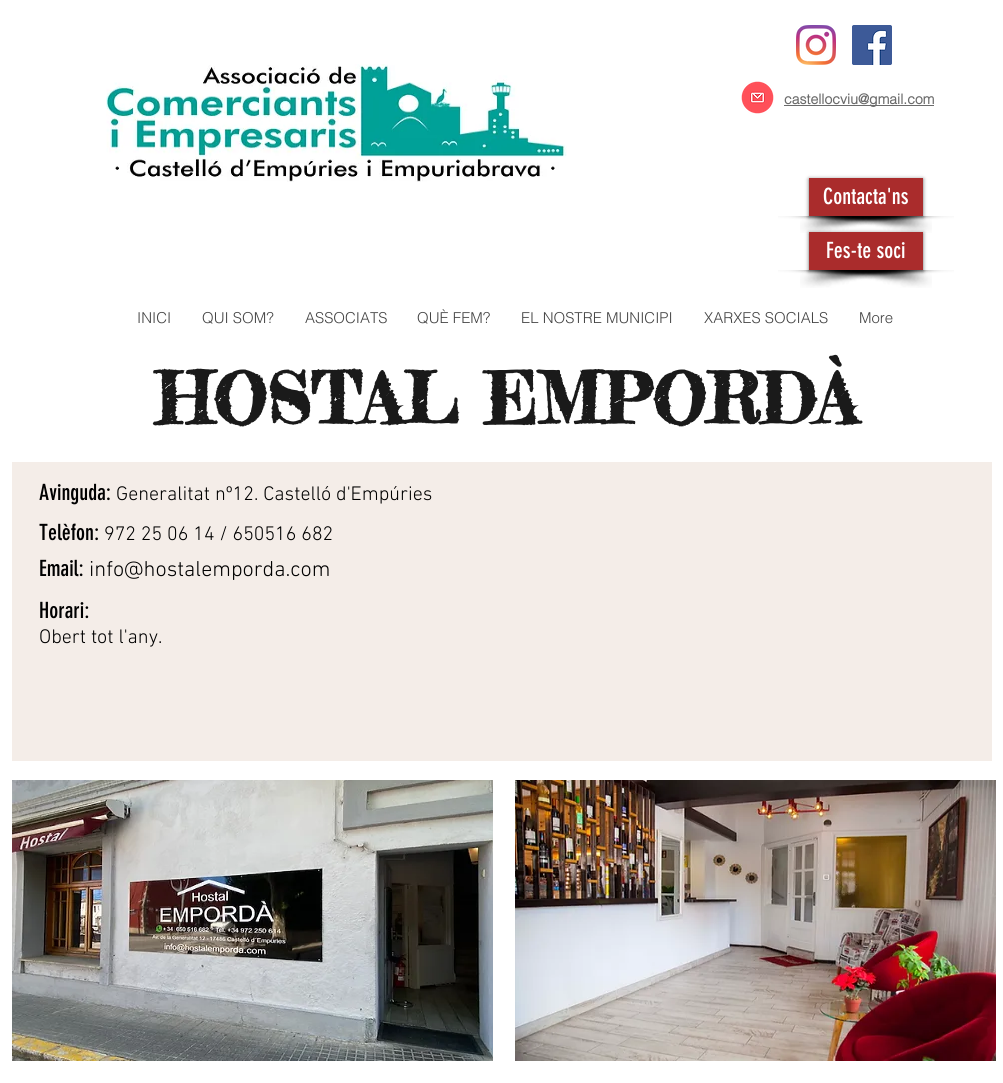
#include <cairo/cairo.h>
#include <math.h>
#include <stddef.h>


static void rounded_rect(cairo_t *cr, double x, double y, double w, double h, double r) {
  cairo_new_sub_path(cr);
  cairo_arc(cr, x + w - r, y + h - r, r, 0, M_PI / 2);
  cairo_arc(cr, x + r, y + h - r, r, M_PI / 2, M_PI);
  cairo_arc(cr, x + r, y + r, r, M_PI, 1.5 * M_PI);
  cairo_arc(cr, x + w - r, y + r, r, 1.5 * M_PI, 2 * M_PI);
  cairo_close_path(cr);
}

static void draw_shadow(cairo_t *cr, double x, double y, double w, double h, double r, double blur, double alpha) {
  cairo_push_group_with_content(cr, CAIRO_CONTENT_ALPHA);
  cairo_set_operator(cr, CAIRO_OPERATOR_SOURCE);
  for (int i = 15; i >= -15 && fmin(w, h) + blur * i / 3 > 0; i -= 2) {
    double e = blur * i / 6;
    cairo_set_source_rgba(cr, 0, 0, 0, alpha * erfc((i - 1) / 8.5) / 2);
    rounded_rect(cr, x - e, y - e, w + 2 * e, h + 2 * e, fmax(0, fmin(r + e + blur * .6, fmin(w, h) / 2 + e)));
    cairo_fill(cr);
  }
  cairo_pattern_t *soft = cairo_pop_group(cr);
  cairo_mask(cr, soft);
  cairo_pattern_destroy(soft);
}

static void draw_image(cairo_t *cr, const char *path, double x, double y, double w, double h) {
  cairo_surface_t *image = cairo_image_surface_create_from_png(path);
  cairo_save(cr);
  cairo_set_source_surface(cr, image, x, y);
  cairo_rectangle(cr, x, y, w, h);
  cairo_fill(cr);
  cairo_restore(cr);
  cairo_surface_destroy(image);
}

static void draw(cairo_t *cr) {
  cairo_set_source_rgb(cr, 1, 1, 1);
  cairo_paint(cr);
  draw_image(cr, "images/1.png", 796, 25, 40, 40);
  draw_image(cr, "images/2.png", 852, 25, 40, 40);
  draw_image(cr, "images/3.png", 106, 64, 461, 118);
  draw_image(cr, "images/4.png", 741, 81, 33, 33);
  cairo_set_source_rgb(cr, 107 / 255.0, 107 / 255.0, 107 / 255.0);
  cairo_rectangle(cr, 784, 105, 150, 1);
  cairo_fill(cr);
  draw_image(cr, "images/6.png", 800, 216, 154, 17);
  draw_image(cr, "images/5.png", 778, 216, 154, 17);
  cairo_set_source_rgb(cr, 0, 0, 0);
  draw_shadow(cr, 809, 179, 114, 38, 0, 2, 0.6);
  cairo_set_source_rgb(cr, 170 / 255.0, 44 / 255.0, 44 / 255.0);
  cairo_rectangle(cr, 809, 178, 114, 38);
  cairo_fill(cr);
  draw_image(cr, "images/8.png", 800, 270, 154, 18);
  draw_image(cr, "images/7.png", 778, 270, 154, 18);
  cairo_set_source_rgb(cr, 0, 0, 0);
  draw_shadow(cr, 809, 233, 114, 38, 0, 2, 0.6);
  cairo_set_source_rgb(cr, 170 / 255.0, 44 / 255.0, 44 / 255.0);
  cairo_rectangle(cr, 809, 232, 114, 38);
  cairo_fill(cr);
  cairo_set_source_rgb(cr, 244 / 255.0, 237 / 255.0, 232 / 255.0);
  cairo_rectangle(cr, 12, 462, 980, 299);
  cairo_fill(cr);
  draw_image(cr, "images/9.png", 12, 780, 481, 281);
  draw_image(cr, "images/10.png", 515, 780, 481, 281);
  cairo_select_font_face(cr, "helvetica", CAIRO_FONT_SLANT_NORMAL, CAIRO_FONT_WEIGHT_BOLD);
  cairo_set_font_size(cr, 14);
  cairo_set_source_rgb(cr, 107 / 255.0, 107 / 255.0, 107 / 255.0);
  cairo_move_to(cr, 784, 104);
  cairo_show_text(cr, "castellocviu@gmail.com");
  cairo_select_font_face(cr, "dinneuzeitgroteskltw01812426", CAIRO_FONT_SLANT_NORMAL, CAIRO_FONT_WEIGHT_NORMAL);
  cairo_set_font_size(cr, 22);
  cairo_set_source_rgb(cr, 1, 1, 1);
  cairo_move_to(cr, 823, 204);
  cairo_show_text(cr, "Contacta'ns");
  cairo_move_to(cr, 826, 258);
  cairo_show_text(cr, "Fes-te soci");
  cairo_select_font_face(cr, "helvetica Light", CAIRO_FONT_SLANT_NORMAL, CAIRO_FONT_WEIGHT_NORMAL);
  cairo_set_font_size(cr, 15);
  cairo_set_source_rgb(cr, 68 / 255.0, 68 / 255.0, 68 / 255.0);
  cairo_move_to(cr, 137, 323);
  cairo_show_text(cr, "INICI");
  cairo_move_to(cr, 202, 323);
  cairo_show_text(cr, "QUI SOM?");
  cairo_move_to(cr, 305, 323);
  cairo_show_text(cr, "ASSOCIATS");
  cairo_move_to(cr, 417, 323);
  cairo_show_text(cr, "QUÈ FEM?");
  cairo_move_to(cr, 521, 323);
  cairo_show_text(cr, "EL NOSTRE MUNICIPI");
  cairo_move_to(cr, 704, 323);
  cairo_show_text(cr, "XARXES SOCIALS");
  cairo_move_to(cr, 859, 323);
  cairo_show_text(cr, "More");
  cairo_select_font_face(cr, "Fredericka the Great", CAIRO_FONT_SLANT_NORMAL, CAIRO_FONT_WEIGHT_BOLD);
  cairo_set_font_size(cr, 70);
  cairo_set_source_rgb(cr, 26 / 255.0, 26 / 255.0, 26 / 255.0);
  cairo_move_to(cr, 155, 424);
  cairo_show_text(cr, "HOSTAL EMPORDÀ");
  cairo_select_font_face(cr, "dinneuzeitgroteskltw01812426", CAIRO_FONT_SLANT_NORMAL, CAIRO_FONT_WEIGHT_NORMAL);
  cairo_set_font_size(cr, 22);
  cairo_set_source_rgb(cr, 0, 0, 0);
  cairo_move_to(cr, 39, 500);
  cairo_show_text(cr, "Avinguda:");
  cairo_select_font_face(cr, "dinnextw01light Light", CAIRO_FONT_SLANT_NORMAL, CAIRO_FONT_WEIGHT_NORMAL);
  cairo_set_font_size(cr, 20);
  cairo_move_to(cr, 116, 500);
  cairo_show_text(cr, "Generalitat nº12. Castelló d'Empúries");
  cairo_select_font_face(cr, "dinneuzeitgroteskltw01812426", CAIRO_FONT_SLANT_NORMAL, CAIRO_FONT_WEIGHT_NORMAL);
  cairo_set_font_size(cr, 22);
  cairo_move_to(cr, 39, 540);
  cairo_show_text(cr, "Telèfon:");
  cairo_select_font_face(cr, "dinnextw01light Light", CAIRO_FONT_SLANT_NORMAL, CAIRO_FONT_WEIGHT_NORMAL);
  cairo_set_font_size(cr, 20);
  cairo_move_to(cr, 104, 540);
  cairo_show_text(cr, "972 25 06 14 / 650516 682");
  cairo_select_font_face(cr, "dinneuzeitgroteskltw01812426", CAIRO_FONT_SLANT_NORMAL, CAIRO_FONT_WEIGHT_NORMAL);
  cairo_set_font_size(cr, 22);
  cairo_move_to(cr, 39, 576);
  cairo_show_text(cr, "Email:");
  cairo_select_font_face(cr, "dinnextw01light Light", CAIRO_FONT_SLANT_NORMAL, CAIRO_FONT_WEIGHT_NORMAL);
  cairo_move_to(cr, 89, 576);
  cairo_show_text(cr, "info@hostalemporda.com");
  cairo_select_font_face(cr, "dinneuzeitgroteskltw01812426", CAIRO_FONT_SLANT_NORMAL, CAIRO_FONT_WEIGHT_NORMAL);
  cairo_move_to(cr, 39, 618);
  cairo_show_text(cr, "Horari:");
  cairo_select_font_face(cr, "dinnextw01light Light", CAIRO_FONT_SLANT_NORMAL, CAIRO_FONT_WEIGHT_NORMAL);
  cairo_set_font_size(cr, 20);
  cairo_move_to(cr, 39, 643);
  cairo_show_text(cr, "Obert tot l'any.");
}

int main(void) {
  cairo_surface_t *surface = cairo_image_surface_create(CAIRO_FORMAT_RGB24, 1003, 1083);
  cairo_t *cr = cairo_create(surface);
  cairo_font_options_t *options = cairo_font_options_create();
  cairo_font_options_set_hint_metrics(options, CAIRO_HINT_METRICS_OFF);
  cairo_font_options_set_hint_style(options, CAIRO_HINT_STYLE_NONE);
  cairo_set_font_options(cr, options);
  cairo_set_miter_limit(cr, 4);
  draw(cr);
  cairo_surface_write_to_png(surface, "out.png");
  cairo_font_options_destroy(options);
  cairo_destroy(cr);
  cairo_surface_destroy(surface);
  return 0;
}
